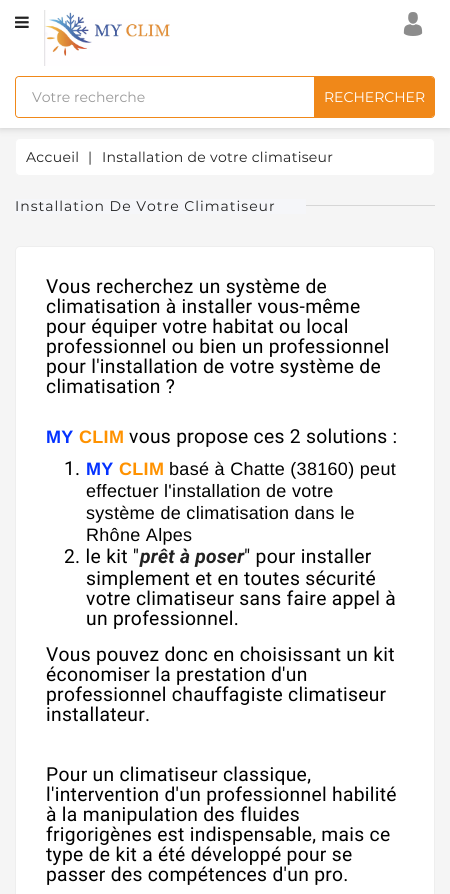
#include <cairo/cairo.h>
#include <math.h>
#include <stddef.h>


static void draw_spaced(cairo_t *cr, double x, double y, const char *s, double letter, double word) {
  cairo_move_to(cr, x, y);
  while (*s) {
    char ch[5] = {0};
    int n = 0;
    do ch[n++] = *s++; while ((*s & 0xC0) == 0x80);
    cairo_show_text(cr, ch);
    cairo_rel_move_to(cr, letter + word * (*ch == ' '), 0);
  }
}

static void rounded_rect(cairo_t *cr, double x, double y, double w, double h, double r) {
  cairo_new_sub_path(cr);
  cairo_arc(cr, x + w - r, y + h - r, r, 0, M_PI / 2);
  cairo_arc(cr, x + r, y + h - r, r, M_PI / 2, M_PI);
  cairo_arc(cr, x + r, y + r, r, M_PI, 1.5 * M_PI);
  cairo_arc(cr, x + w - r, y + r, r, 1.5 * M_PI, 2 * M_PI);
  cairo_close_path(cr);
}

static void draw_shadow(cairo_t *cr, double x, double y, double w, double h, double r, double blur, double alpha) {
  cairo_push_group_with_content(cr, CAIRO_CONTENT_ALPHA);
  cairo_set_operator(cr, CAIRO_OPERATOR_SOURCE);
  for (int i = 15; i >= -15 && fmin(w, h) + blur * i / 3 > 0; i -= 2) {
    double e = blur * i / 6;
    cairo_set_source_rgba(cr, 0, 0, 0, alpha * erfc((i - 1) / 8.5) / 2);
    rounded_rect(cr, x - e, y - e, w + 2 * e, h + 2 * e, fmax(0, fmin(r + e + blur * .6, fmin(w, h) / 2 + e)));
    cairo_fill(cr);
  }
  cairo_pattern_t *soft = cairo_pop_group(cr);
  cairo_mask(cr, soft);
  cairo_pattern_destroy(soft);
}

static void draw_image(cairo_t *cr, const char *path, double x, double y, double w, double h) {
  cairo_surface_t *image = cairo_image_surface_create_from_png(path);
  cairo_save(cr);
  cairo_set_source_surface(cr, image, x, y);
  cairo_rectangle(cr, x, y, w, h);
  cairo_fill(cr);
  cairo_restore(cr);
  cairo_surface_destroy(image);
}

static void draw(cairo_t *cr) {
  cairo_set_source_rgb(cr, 245 / 255.0, 245 / 255.0, 245 / 255.0);
  cairo_paint(cr);
  cairo_set_source_rgb(cr, 0, 0, 0);
  draw_shadow(cr, 0, 0, 450, 128, 0, 4, 0.2);
  cairo_set_source_rgb(cr, 1, 1, 1);
  cairo_rectangle(cr, 0, 0, 450, 128);
  cairo_fill(cr);
  draw_image(cr, "images/1.png", 15, 16, 14, 12);
  draw_image(cr, "images/2.png", 44, 10, 126, 56);
  draw_image(cr, "images/3.png", 403, 12, 20, 24);
  rounded_rect(cr, 15.5, 76.5, 419, 41, 3.5);
  cairo_set_source_rgb(cr, 240 / 255.0, 136 / 255.0, 25 / 255.0);
  cairo_set_line_width(cr, 1);
  cairo_stroke(cr);
  cairo_set_source_rgb(cr, 1, 1, 1);
  rounded_rect(cr, 16, 77, 298, 40, 4);
  cairo_fill(cr);
  cairo_set_source_rgb(cr, 240 / 255.0, 136 / 255.0, 25 / 255.0);
  cairo_new_path(cr);
  cairo_move_to(cr, 314, 77);
  cairo_line_to(cr, 431, 77);
  cairo_curve_to(cr, 433, 77, 435, 79, 435, 81);
  cairo_line_to(cr, 435, 113);
  cairo_curve_to(cr, 435, 115, 433, 117, 431, 117);
  cairo_line_to(cr, 314, 117);
  cairo_close_path(cr);
  cairo_fill(cr);
  cairo_set_source_rgb(cr, 1, 1, 1);
  rounded_rect(cr, 15.5, 138.5, 419, 37, 4.5);
  cairo_fill_preserve(cr);
  cairo_set_source_rgb(cr, 245 / 255.0, 245 / 255.0, 245 / 255.0);
  cairo_stroke(cr);
  cairo_set_source_rgb(cr, 245 / 255.0, 246 / 255.0, 249 / 255.0);
  cairo_rectangle(cr, 15, 199, 291, 15);
  cairo_fill(cr);
  cairo_set_source_rgb(cr, 214 / 255.0, 214 / 255.0, 214 / 255.0);
  cairo_rectangle(cr, 306, 205, 129, 1);
  cairo_fill(cr);
  cairo_set_source_rgb(cr, 1, 1, 1);
  rounded_rect(cr, 15.5, 246.5, 419, 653, 4.5);
  cairo_fill_preserve(cr);
  cairo_set_source_rgb(cr, 238 / 255.0, 238 / 255.0, 238 / 255.0);
  cairo_stroke(cr);
  cairo_select_font_face(cr, "Montserrat", CAIRO_FONT_SLANT_NORMAL, CAIRO_FONT_WEIGHT_NORMAL);
  cairo_set_font_size(cr, 14);
  cairo_set_source_rgb(cr, 153 / 255.0, 153 / 255.0, 153 / 255.0);
  cairo_move_to(cr, 32, 102);
  cairo_show_text(cr, "Votre recherche");
  cairo_set_source_rgb(cr, 1, 1, 1);
  cairo_move_to(cr, 324, 102);
  cairo_show_text(cr, "RECHERCHER");
  cairo_set_source_rgb(cr, 34 / 255.0, 34 / 255.0, 34 / 255.0);
  draw_spaced(cr, 26, 162, "Accueil", 0.3, 0);
  draw_spaced(cr, 88, 162, "|", 0.3, 0);
  draw_spaced(cr, 102, 162, "Installation de votre climatiseur", 0.3, 0);
  draw_spaced(cr, 15, 211, "Installation De Votre Climatiseur", 1, 0);
  cairo_select_font_face(cr, "Roboto", CAIRO_FONT_SLANT_NORMAL, CAIRO_FONT_WEIGHT_NORMAL);
  cairo_set_font_size(cr, 19.25);
  cairo_set_source_rgb(cr, 0, 0, 0);
  draw_spaced(cr, 46, 293, "Vous recherchez un système de", 0.3, 0);
  draw_spaced(cr, 46, 313, "climatisation à installer vous-même", 0.3, 0);
  draw_spaced(cr, 46, 333, "pour équiper votre habitat ou local", 0.3, 0);
  draw_spaced(cr, 46, 353, "professionnel ou bien un professionnel", 0.3, 0);
  draw_spaced(cr, 46, 373, "pour l'installation de votre système de", 0.3, 0);
  draw_spaced(cr, 46, 393, "climatisation ?", 0.3, 0);
  cairo_select_font_face(cr, "Liberation Sans", CAIRO_FONT_SLANT_NORMAL, CAIRO_FONT_WEIGHT_BOLD);
  cairo_set_font_size(cr, 18);
  cairo_set_source_rgb(cr, 4 / 255.0, 50 / 255.0, 1);
  draw_spaced(cr, 46, 443, "MY", 0.3, 0);
  cairo_set_source_rgb(cr, 1, 146 / 255.0, 0);
  draw_spaced(cr, 79, 443, "CLIM", 0.3, 0);
  cairo_select_font_face(cr, "Roboto", CAIRO_FONT_SLANT_NORMAL, CAIRO_FONT_WEIGHT_NORMAL);
  cairo_set_font_size(cr, 19.25);
  cairo_set_source_rgb(cr, 0, 0, 0);
  draw_spaced(cr, 129, 443, "vous propose ces 2 solutions :", 0.3, 0);
  draw_spaced(cr, 64, 475, "1.", 0.3, 0);
  cairo_select_font_face(cr, "Liberation Sans", CAIRO_FONT_SLANT_NORMAL, CAIRO_FONT_WEIGHT_BOLD);
  cairo_set_font_size(cr, 18);
  cairo_set_source_rgb(cr, 4 / 255.0, 50 / 255.0, 1);
  draw_spaced(cr, 86, 475, "MY", 0.3, 0);
  cairo_set_source_rgb(cr, 1, 146 / 255.0, 0);
  draw_spaced(cr, 119, 475, "CLIM", 0.3, 0);
  cairo_select_font_face(cr, "Liberation Sans", CAIRO_FONT_SLANT_NORMAL, CAIRO_FONT_WEIGHT_NORMAL);
  cairo_set_source_rgb(cr, 0, 0, 0);
  draw_spaced(cr, 169, 475, "basé à Chatte (38160) peut", 0.3, 0);
  draw_spaced(cr, 86, 497, "effectuer l'installation de votre", 0.3, 0);
  draw_spaced(cr, 86, 519, "système de climatisation dans le", 0.3, 0);
  draw_spaced(cr, 86, 541, "Rhône Alpes", 0.3, 0);
  cairo_select_font_face(cr, "Roboto", CAIRO_FONT_SLANT_NORMAL, CAIRO_FONT_WEIGHT_NORMAL);
  cairo_set_font_size(cr, 19.25);
  draw_spaced(cr, 64, 563, "2. le kit \"", 0.3, 0);
  cairo_select_font_face(cr, "Roboto", CAIRO_FONT_SLANT_ITALIC, CAIRO_FONT_WEIGHT_BOLD);
  cairo_set_source_rgb(cr, 34 / 255.0, 34 / 255.0, 34 / 255.0);
  draw_spaced(cr, 140, 563, "prêt à poser", 0.3, 0);
  cairo_select_font_face(cr, "Roboto", CAIRO_FONT_SLANT_NORMAL, CAIRO_FONT_WEIGHT_NORMAL);
  cairo_set_source_rgb(cr, 0, 0, 0);
  draw_spaced(cr, 244, 563, "\" pour installer", 0.3, 0);
  draw_spaced(cr, 86, 585, "simplement et en toutes sécurité", 0.3, 0);
  draw_spaced(cr, 86, 605, "votre climatiseur sans faire appel à", 0.3, 0);
  draw_spaced(cr, 86, 625, "un professionnel.", 0.3, 0);
  draw_spaced(cr, 46, 661, "Vous pouvez donc en choisissant un kit", 0.3, 0);
  draw_spaced(cr, 46, 681, "économiser la prestation d'un", 0.3, 0);
  draw_spaced(cr, 46, 701, "professionnel chauffagiste climatiseur", 0.3, 0);
  draw_spaced(cr, 46, 721, "installateur.", 0.3, 0);
  draw_spaced(cr, 46, 781, "Pour un climatiseur classique,", 0.3, 0);
  draw_spaced(cr, 46, 801, "l'intervention d'un professionnel habilité", 0.3, 0);
  draw_spaced(cr, 46, 821, "à la manipulation des fluides", 0.3, 0);
  draw_spaced(cr, 46, 841, "frigorigènes est indispensable, mais ce", 0.3, 0);
  draw_spaced(cr, 46, 861, "type de kit a été développé pour se", 0.3, 0);
  draw_spaced(cr, 46, 881, "passer des compétences d'un pro.", 0.3, 0);
}

int main(void) {
  cairo_surface_t *surface = cairo_image_surface_create(CAIRO_FORMAT_RGB24, 450, 894);
  cairo_t *cr = cairo_create(surface);
  cairo_font_options_t *options = cairo_font_options_create();
  cairo_font_options_set_hint_metrics(options, CAIRO_HINT_METRICS_OFF);
  cairo_font_options_set_hint_style(options, CAIRO_HINT_STYLE_NONE);
  cairo_set_font_options(cr, options);
  cairo_set_miter_limit(cr, 4);
  draw(cr);
  cairo_surface_write_to_png(surface, "out.png");
  cairo_font_options_destroy(options);
  cairo_destroy(cr);
  cairo_surface_destroy(surface);
  return 0;
}
